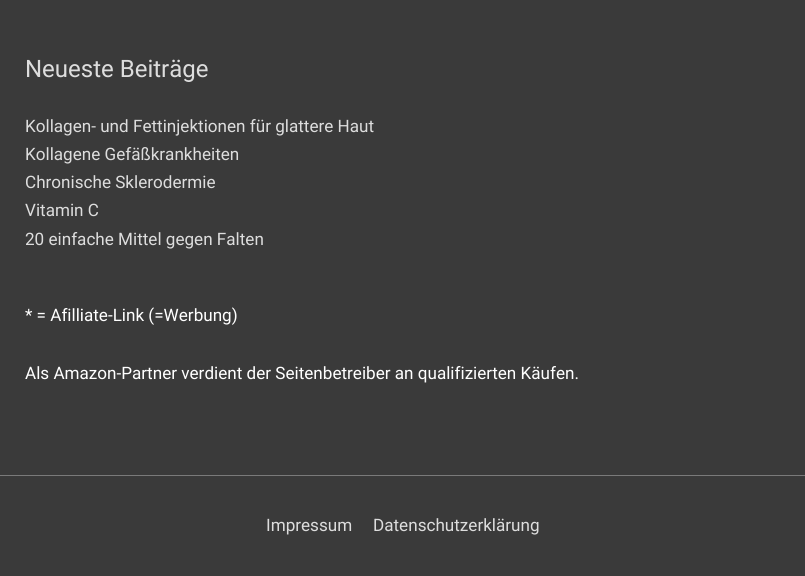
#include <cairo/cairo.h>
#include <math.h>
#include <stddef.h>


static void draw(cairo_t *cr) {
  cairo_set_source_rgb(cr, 58 / 255.0, 58 / 255.0, 58 / 255.0);
  cairo_paint(cr);
  cairo_set_source_rgb(cr, 122 / 255.0, 122 / 255.0, 122 / 255.0);
  cairo_rectangle(cr, 0, 475, 805, 1);
  cairo_fill(cr);
  cairo_select_font_face(cr, "Roboto", CAIRO_FONT_SLANT_NORMAL, CAIRO_FONT_WEIGHT_NORMAL);
  cairo_set_font_size(cr, 24);
  cairo_set_source_rgb(cr, 221 / 255.0, 221 / 255.0, 221 / 255.0);
  cairo_move_to(cr, 25, 77);
  cairo_show_text(cr, "Neueste Beiträge");
  cairo_set_font_size(cr, 17.1);
  cairo_move_to(cr, 25, 132);
  cairo_show_text(cr, "Kollagen- und Fettinjektionen für glattere Haut");
  cairo_move_to(cr, 25, 160);
  cairo_show_text(cr, "Kollagene Gefäßkrankheiten");
  cairo_move_to(cr, 25, 188);
  cairo_show_text(cr, "Chronische Sklerodermie");
  cairo_move_to(cr, 25, 216);
  cairo_show_text(cr, "Vitamin C");
  cairo_move_to(cr, 25, 245);
  cairo_show_text(cr, "20 einfache Mittel gegen Falten");
  cairo_set_source_rgb(cr, 1, 1, 1);
  cairo_move_to(cr, 25, 321);
  cairo_show_text(cr, "* = Afilliate-Link (=Werbung)");
  cairo_move_to(cr, 25, 379);
  cairo_show_text(cr, "Als Amazon-Partner verdient der Seitenbetreiber an qualifizierten Käufen.");
  cairo_set_source_rgb(cr, 221 / 255.0, 221 / 255.0, 221 / 255.0);
  cairo_move_to(cr, 266, 531);
  cairo_show_text(cr, "Impressum");
  cairo_move_to(cr, 373, 531);
  cairo_show_text(cr, "Datenschutzerklärung");
}

int main(void) {
  cairo_surface_t *surface = cairo_image_surface_create(CAIRO_FORMAT_RGB24, 805, 576);
  cairo_t *cr = cairo_create(surface);
  cairo_font_options_t *options = cairo_font_options_create();
  cairo_font_options_set_hint_metrics(options, CAIRO_HINT_METRICS_OFF);
  cairo_font_options_set_hint_style(options, CAIRO_HINT_STYLE_NONE);
  cairo_set_font_options(cr, options);
  cairo_set_miter_limit(cr, 4);
  draw(cr);
  cairo_surface_write_to_png(surface, "out.png");
  cairo_font_options_destroy(options);
  cairo_destroy(cr);
  cairo_surface_destroy(surface);
  return 0;
}
